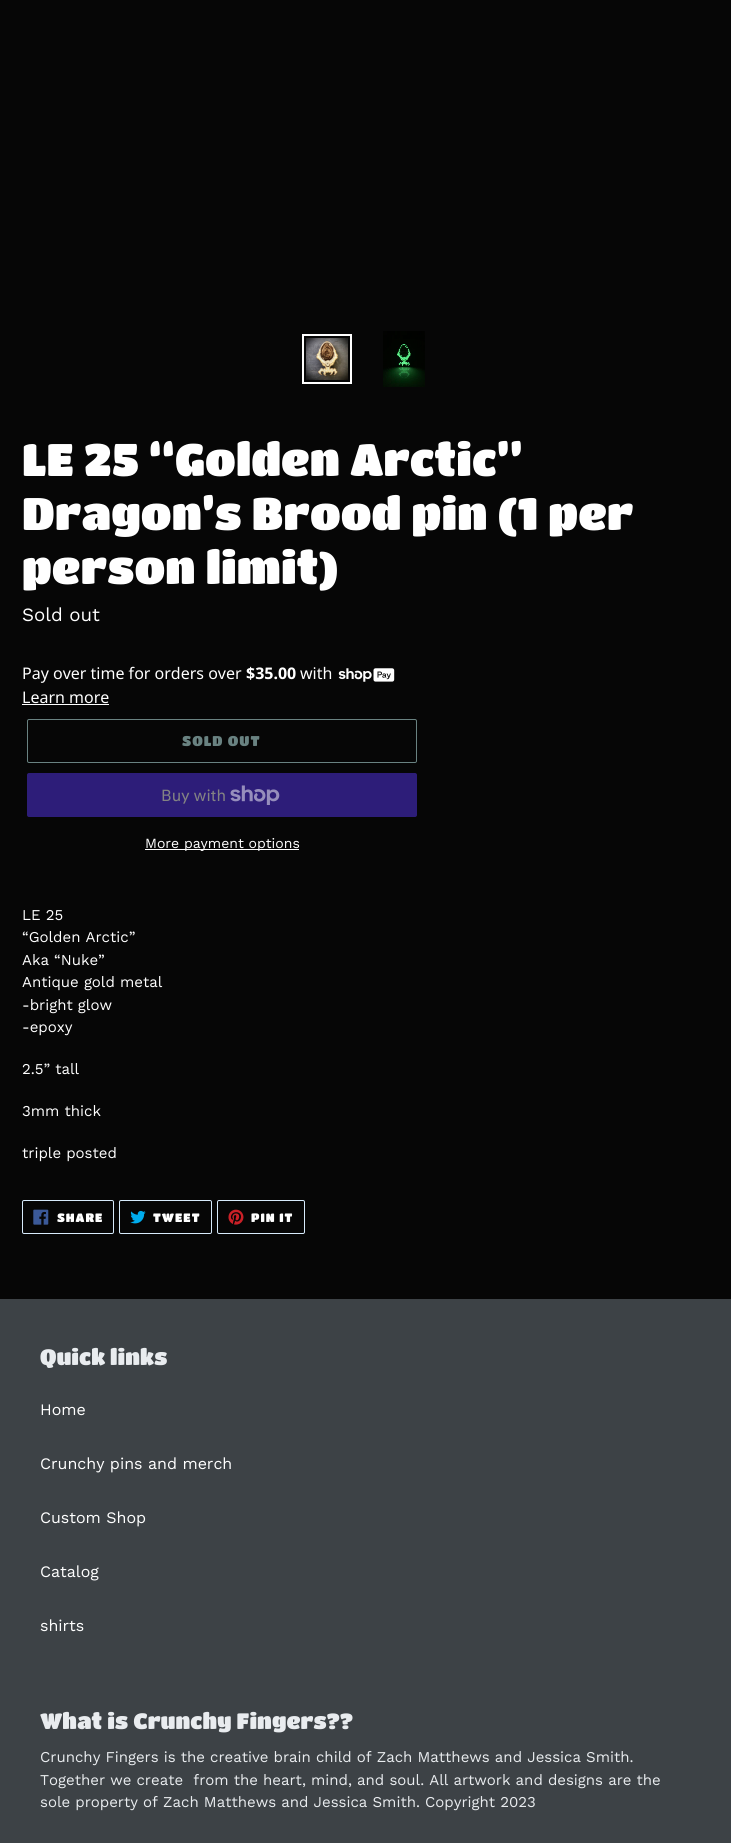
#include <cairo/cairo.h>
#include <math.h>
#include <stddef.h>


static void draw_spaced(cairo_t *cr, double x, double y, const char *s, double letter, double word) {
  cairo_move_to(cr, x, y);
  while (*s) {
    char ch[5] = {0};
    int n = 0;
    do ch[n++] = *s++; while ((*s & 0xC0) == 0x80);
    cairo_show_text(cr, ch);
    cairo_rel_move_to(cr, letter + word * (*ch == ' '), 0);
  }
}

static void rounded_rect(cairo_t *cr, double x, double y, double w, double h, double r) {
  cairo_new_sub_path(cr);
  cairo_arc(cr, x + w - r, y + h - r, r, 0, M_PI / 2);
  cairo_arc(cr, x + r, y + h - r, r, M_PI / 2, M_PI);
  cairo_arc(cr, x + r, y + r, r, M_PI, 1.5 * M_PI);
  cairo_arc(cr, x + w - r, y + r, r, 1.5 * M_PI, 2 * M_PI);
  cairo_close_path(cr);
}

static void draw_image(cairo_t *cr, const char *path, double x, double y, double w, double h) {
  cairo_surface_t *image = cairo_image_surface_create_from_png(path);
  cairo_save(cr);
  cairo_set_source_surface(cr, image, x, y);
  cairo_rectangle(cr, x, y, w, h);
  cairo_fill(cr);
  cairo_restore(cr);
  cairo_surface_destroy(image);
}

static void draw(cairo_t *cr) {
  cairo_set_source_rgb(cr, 6 / 255.0, 6 / 255.0, 6 / 255.0);
  cairo_paint(cr);
  cairo_rectangle(cr, 303, 335, 48, 48);
  cairo_set_source_rgb(cr, 1, 1, 1);
  cairo_stroke(cr);
  draw_image(cr, "images/1.png", 306, 338, 42, 42);
  draw_image(cr, "images/2.png", 383, 331, 42, 56);
  draw_image(cr, "images/3.png", 338, 668, 57, 14);
  cairo_rectangle(cr, 22, 704, 87, 1);
  cairo_fill(cr);
  rounded_rect(cr, 27.5, 719.5, 389, 43, 1.5);
  cairo_set_source_rgb(cr, 105 / 255.0, 130 / 255.0, 129 / 255.0);
  cairo_set_line_width(cr, 1);
  cairo_stroke(cr);
  cairo_set_source_rgb(cr, 45 / 255.0, 29 / 255.0, 121 / 255.0);
  rounded_rect(cr, 27, 773, 390, 44, 2);
  cairo_fill(cr);
  draw_image(cr, "images/4.png", 230, 785, 50, 20);
  cairo_set_source_rgb(cr, 1, 1, 1);
  cairo_rectangle(cr, 145, 849, 154, 1);
  cairo_fill(cr);
  rounded_rect(cr, 22.5, 1200.5, 91, 33, 1.5);
  cairo_set_source_rgb(cr, 215 / 255.0, 235 / 255.0, 252 / 255.0);
  cairo_stroke(cr);
  draw_image(cr, "images/5.png", 33, 1209, 16, 16);
  rounded_rect(cr, 119.5, 1200.5, 92, 33, 1.5);
  cairo_stroke(cr);
  draw_image(cr, "images/6.png", 130, 1210, 16, 14);
  rounded_rect(cr, 217.5, 1200.5, 87, 33, 1.5);
  cairo_stroke(cr);
  draw_image(cr, "images/7.png", 228, 1209, 16, 16);
  cairo_set_source_rgb(cr, 61 / 255.0, 66 / 255.0, 70 / 255.0);
  cairo_rectangle(cr, 0, 1299, 731, 544);
  cairo_fill(cr);
  cairo_select_font_face(cr, "Titan One", CAIRO_FONT_SLANT_NORMAL, CAIRO_FONT_WEIGHT_NORMAL);
  cairo_set_font_size(cr, 45);
  cairo_set_source_rgb(cr, 1, 1, 1);
  cairo_move_to(cr, 22, 476);
  cairo_show_text(cr, "LE 25 “Golden Arctic”");
  cairo_move_to(cr, 22, 530);
  cairo_show_text(cr, "Dragon’s Brood pin (1 per");
  cairo_move_to(cr, 22, 584);
  cairo_show_text(cr, "person limit)");
  cairo_select_font_face(cr, "Work Sans", CAIRO_FONT_SLANT_NORMAL, CAIRO_FONT_WEIGHT_NORMAL);
  cairo_set_font_size(cr, 18.75);
  cairo_move_to(cr, 22, 621);
  cairo_show_text(cr, "Sold out");
  cairo_select_font_face(cr, "Noto Sans", CAIRO_FONT_SLANT_NORMAL, CAIRO_FONT_WEIGHT_NORMAL);
  cairo_set_font_size(cr, 16);
  cairo_move_to(cr, 22, 679);
  cairo_show_text(cr, "Pay over time for orders over");
  cairo_select_font_face(cr, "Noto Sans", CAIRO_FONT_SLANT_NORMAL, CAIRO_FONT_WEIGHT_BOLD);
  cairo_move_to(cr, 246, 679);
  cairo_show_text(cr, "$35.00");
  cairo_select_font_face(cr, "Noto Sans", CAIRO_FONT_SLANT_NORMAL, CAIRO_FONT_WEIGHT_NORMAL);
  cairo_move_to(cr, 300, 679);
  cairo_show_text(cr, "with");
  cairo_move_to(cr, 22, 703);
  cairo_show_text(cr, "Learn more");
  cairo_select_font_face(cr, "Titan One", CAIRO_FONT_SLANT_NORMAL, CAIRO_FONT_WEIGHT_NORMAL);
  cairo_set_font_size(cr, 14);
  cairo_set_source_rgb(cr, 105 / 255.0, 130 / 255.0, 129 / 255.0);
  draw_spaced(cr, 182, 746, "SOLD OUT", 1, 0);
  cairo_select_font_face(cr, "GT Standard", CAIRO_FONT_SLANT_NORMAL, CAIRO_FONT_WEIGHT_NORMAL);
  cairo_set_font_size(cr, 16);
  cairo_set_source_rgb(cr, 131 / 255.0, 131 / 255.0, 131 / 255.0);
  cairo_move_to(cr, 161, 801);
  cairo_show_text(cr, "Buy with");
  cairo_select_font_face(cr, "Work Sans", CAIRO_FONT_SLANT_NORMAL, CAIRO_FONT_WEIGHT_NORMAL);
  cairo_set_font_size(cr, 14);
  cairo_set_source_rgb(cr, 1, 1, 1);
  cairo_move_to(cr, 145, 848);
  cairo_show_text(cr, "More payment options");
  cairo_set_font_size(cr, 15);
  cairo_move_to(cr, 22, 920);
  cairo_show_text(cr, "LE 25");
  cairo_move_to(cr, 22, 942);
  cairo_show_text(cr, "“Golden Arctic”");
  cairo_move_to(cr, 22, 965);
  cairo_show_text(cr, "Aka “Nuke”");
  cairo_move_to(cr, 22, 987);
  cairo_show_text(cr, "Antique gold metal");
  cairo_move_to(cr, 22, 1010);
  cairo_show_text(cr, "-bright glow");
  cairo_move_to(cr, 22, 1032);
  cairo_show_text(cr, "-epoxy");
  cairo_move_to(cr, 22, 1074);
  cairo_show_text(cr, "2.5” tall");
  cairo_move_to(cr, 22, 1116);
  cairo_show_text(cr, "3mm thick");
  cairo_move_to(cr, 22, 1158);
  cairo_show_text(cr, "triple posted");
  cairo_select_font_face(cr, "Titan One", CAIRO_FONT_SLANT_NORMAL, CAIRO_FONT_WEIGHT_NORMAL);
  cairo_set_font_size(cr, 12);
  draw_spaced(cr, 57, 1222, "SHARE", 1, 0);
  draw_spaced(cr, 153, 1222, "TWEET", 1, 0);
  draw_spaced(cr, 251, 1222, "PIN IT", 1, 0);
  cairo_set_font_size(cr, 22);
  cairo_set_source_rgb(cr, 233 / 255.0, 236 / 255.0, 239 / 255.0);
  cairo_move_to(cr, 40, 1365);
  cairo_show_text(cr, "Quick links");
  cairo_select_font_face(cr, "Work Sans", CAIRO_FONT_SLANT_NORMAL, CAIRO_FONT_WEIGHT_NORMAL);
  cairo_set_font_size(cr, 16);
  cairo_set_source_rgb(cr, 1, 1, 1);
  cairo_move_to(cr, 40, 1415);
  cairo_show_text(cr, "Home");
  cairo_move_to(cr, 40, 1469);
  cairo_show_text(cr, "Crunchy pins and merch");
  cairo_move_to(cr, 40, 1523);
  cairo_show_text(cr, "Custom Shop");
  cairo_move_to(cr, 40, 1577);
  cairo_show_text(cr, "Catalog");
  cairo_move_to(cr, 40, 1631);
  cairo_show_text(cr, "shirts");
  cairo_select_font_face(cr, "Titan One", CAIRO_FONT_SLANT_NORMAL, CAIRO_FONT_WEIGHT_NORMAL);
  cairo_set_font_size(cr, 22);
  cairo_set_source_rgb(cr, 233 / 255.0, 236 / 255.0, 239 / 255.0);
  cairo_move_to(cr, 40, 1729);
  cairo_show_text(cr, "What is Crunchy Fingers?\077");
  cairo_select_font_face(cr, "Work Sans", CAIRO_FONT_SLANT_NORMAL, CAIRO_FONT_WEIGHT_NORMAL);
  cairo_set_font_size(cr, 15);
  cairo_move_to(cr, 40, 1762);
  cairo_show_text(cr, "Crunchy Fingers is the creative brain child of Zach Matthews and Jessica Smith.");
  cairo_move_to(cr, 40, 1785);
  cairo_show_text(cr, "Together we create  from the heart, mind, and soul. All artwork and designs are the");
  cairo_move_to(cr, 40, 1807);
  cairo_show_text(cr, "sole property of Zach Matthews and Jessica Smith. Copyright 2023");
}

int main(void) {
  cairo_surface_t *surface = cairo_image_surface_create(CAIRO_FORMAT_RGB24, 731, 1843);
  cairo_t *cr = cairo_create(surface);
  cairo_font_options_t *options = cairo_font_options_create();
  cairo_font_options_set_hint_metrics(options, CAIRO_HINT_METRICS_OFF);
  cairo_font_options_set_hint_style(options, CAIRO_HINT_STYLE_NONE);
  cairo_set_font_options(cr, options);
  cairo_set_miter_limit(cr, 4);
  draw(cr);
  cairo_surface_write_to_png(surface, "out.png");
  cairo_font_options_destroy(options);
  cairo_destroy(cr);
  cairo_surface_destroy(surface);
  return 0;
}
